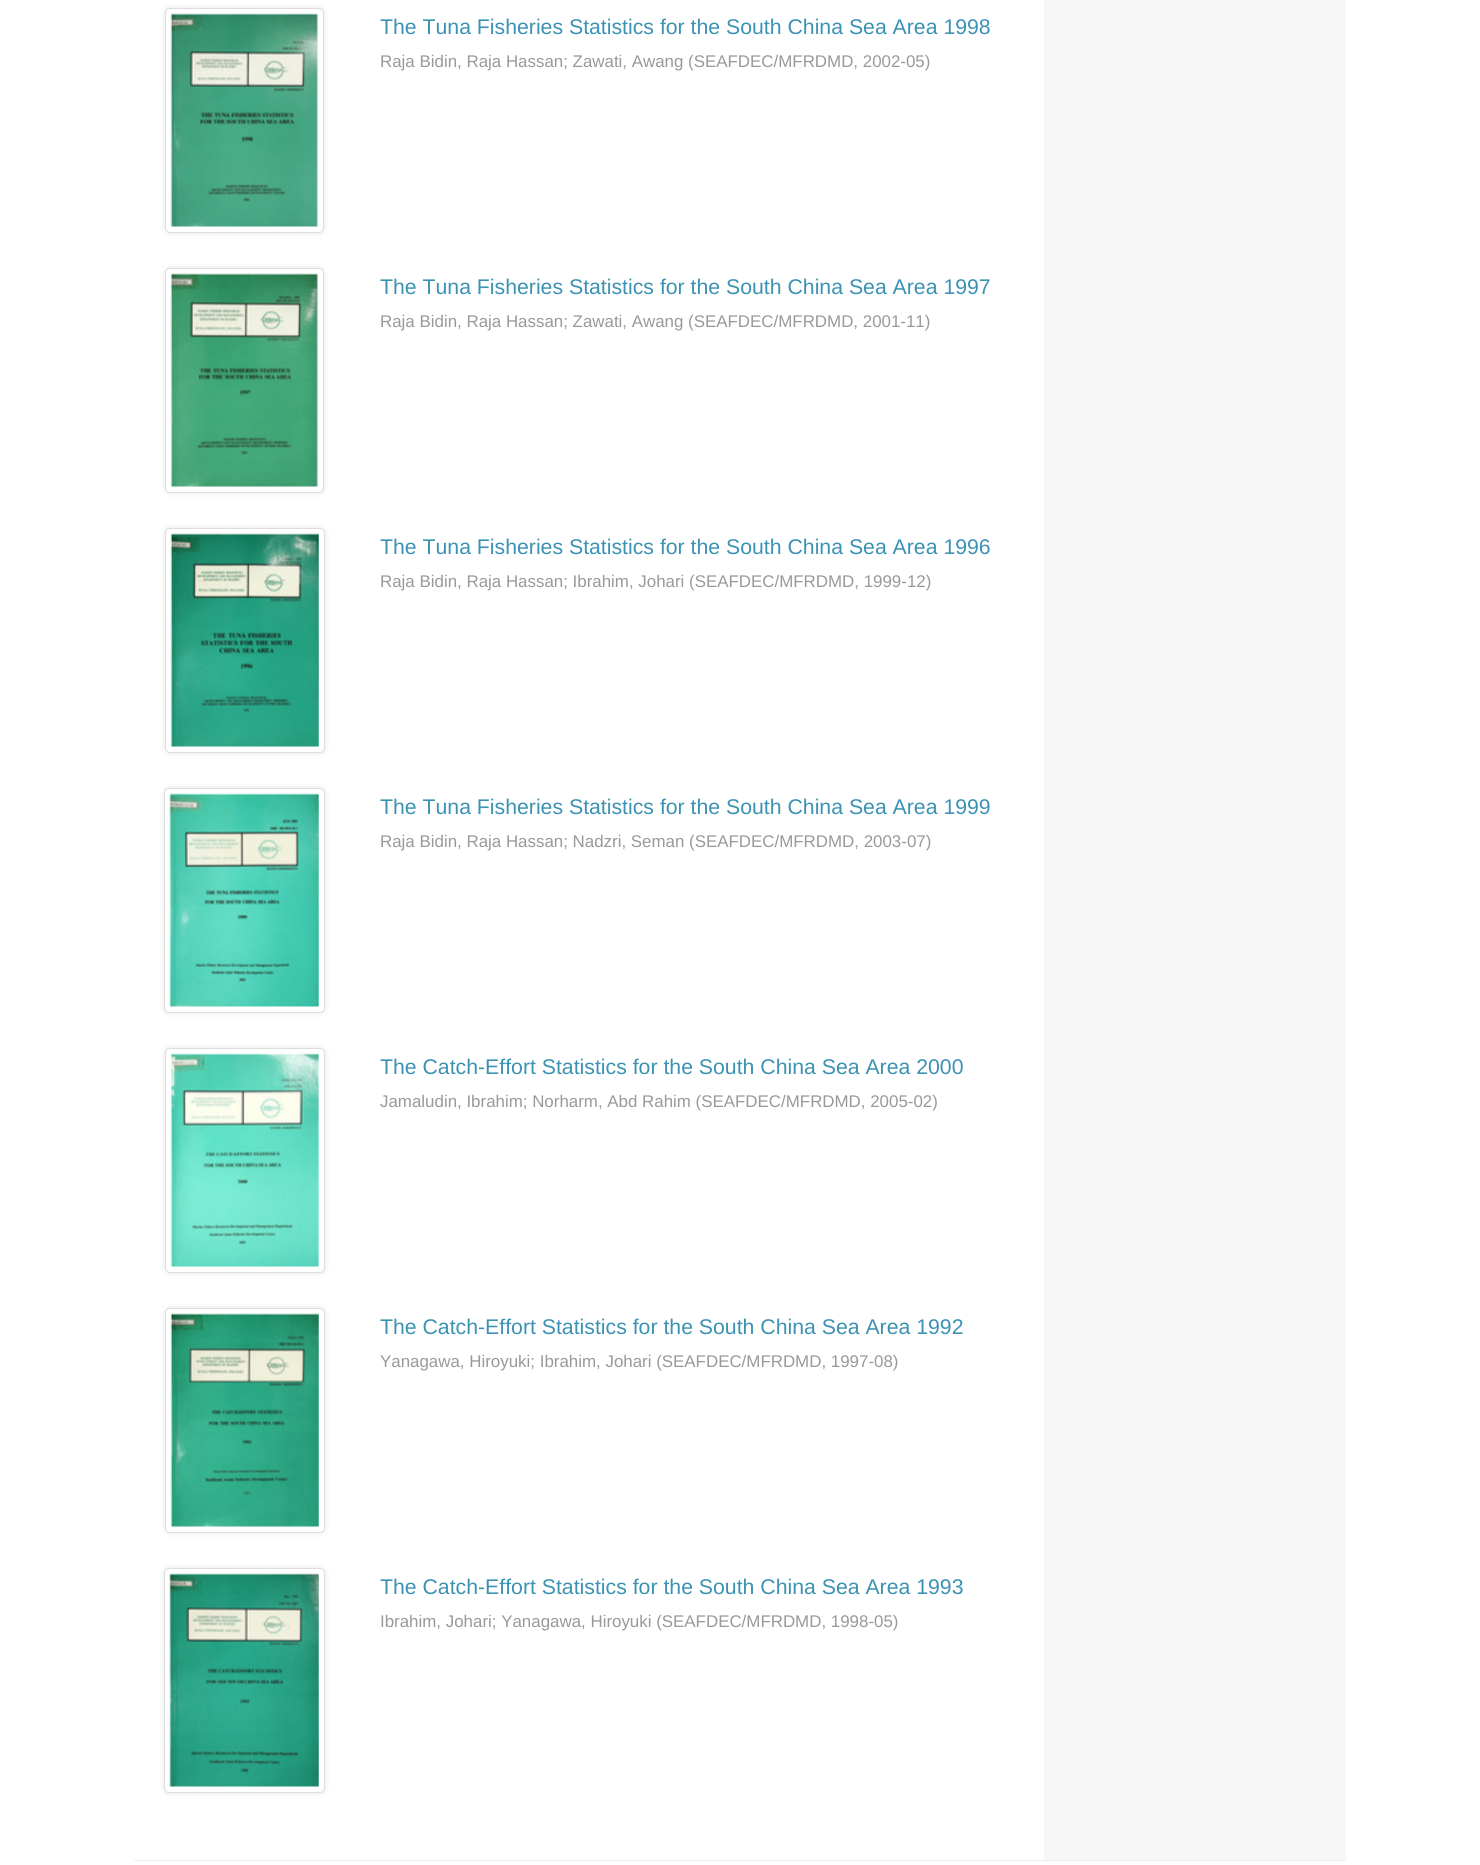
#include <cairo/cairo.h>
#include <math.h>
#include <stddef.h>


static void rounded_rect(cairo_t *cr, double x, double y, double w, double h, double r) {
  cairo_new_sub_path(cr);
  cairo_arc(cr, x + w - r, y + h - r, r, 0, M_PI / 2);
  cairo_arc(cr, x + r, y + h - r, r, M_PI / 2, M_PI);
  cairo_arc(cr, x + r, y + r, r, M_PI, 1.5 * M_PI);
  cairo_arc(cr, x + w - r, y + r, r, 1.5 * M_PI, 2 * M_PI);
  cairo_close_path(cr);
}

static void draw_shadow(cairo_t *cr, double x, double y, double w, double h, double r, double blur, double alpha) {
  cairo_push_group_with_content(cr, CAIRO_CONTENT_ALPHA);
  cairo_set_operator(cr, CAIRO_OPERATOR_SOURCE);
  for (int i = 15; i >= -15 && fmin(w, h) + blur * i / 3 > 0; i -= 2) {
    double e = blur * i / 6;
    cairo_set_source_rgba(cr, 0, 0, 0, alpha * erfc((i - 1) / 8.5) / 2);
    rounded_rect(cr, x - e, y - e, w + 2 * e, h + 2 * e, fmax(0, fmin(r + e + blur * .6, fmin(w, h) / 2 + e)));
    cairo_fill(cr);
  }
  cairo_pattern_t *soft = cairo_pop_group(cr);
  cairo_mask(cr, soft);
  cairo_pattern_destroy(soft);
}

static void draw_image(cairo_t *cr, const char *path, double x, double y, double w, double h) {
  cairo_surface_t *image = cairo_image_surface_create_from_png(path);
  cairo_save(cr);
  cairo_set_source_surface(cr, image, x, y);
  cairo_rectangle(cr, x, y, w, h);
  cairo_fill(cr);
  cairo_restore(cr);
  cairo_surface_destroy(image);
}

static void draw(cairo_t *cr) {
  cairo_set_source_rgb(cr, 1, 1, 1);
  cairo_paint(cr);
  cairo_set_source_rgb(cr, 247 / 255.0, 247 / 255.0, 247 / 255.0);
  cairo_rectangle(cr, 1044, 0, 302, 1860);
  cairo_fill(cr);
  cairo_set_source_rgb(cr, 0, 0, 0);
  draw_shadow(cr, 165, 8, 159, 225, 5, 3, 0.1);
  cairo_set_source_rgb(cr, 1, 1, 1);
  rounded_rect(cr, 165.5, 8.5, 158, 224, 4.5);
  cairo_fill_preserve(cr);
  cairo_set_source_rgb(cr, 221 / 255.0, 221 / 255.0, 221 / 255.0);
  cairo_set_line_width(cr, 1);
  cairo_stroke(cr);
  draw_image(cr, "images/1.png", 170, 13, 148, 214);
  cairo_set_source_rgb(cr, 0, 0, 0);
  draw_shadow(cr, 165, 268, 159, 225, 5, 3, 0.1);
  cairo_set_source_rgb(cr, 1, 1, 1);
  rounded_rect(cr, 165.5, 268.5, 158, 224, 4.5);
  cairo_fill_preserve(cr);
  cairo_set_source_rgb(cr, 221 / 255.0, 221 / 255.0, 221 / 255.0);
  cairo_stroke(cr);
  draw_image(cr, "images/2.png", 170, 273, 148, 214);
  cairo_set_source_rgb(cr, 0, 0, 0);
  draw_shadow(cr, 165, 528, 160, 225, 5, 3, 0.1);
  cairo_set_source_rgb(cr, 1, 1, 1);
  rounded_rect(cr, 165.5, 528.5, 159, 224, 4.5);
  cairo_fill_preserve(cr);
  cairo_set_source_rgb(cr, 221 / 255.0, 221 / 255.0, 221 / 255.0);
  cairo_stroke(cr);
  draw_image(cr, "images/3.png", 170, 533, 149, 214);
  cairo_set_source_rgb(cr, 0, 0, 0);
  draw_shadow(cr, 164, 788, 161, 225, 5, 3, 0.1);
  cairo_set_source_rgb(cr, 1, 1, 1);
  rounded_rect(cr, 164.5, 788.5, 160, 224, 4.5);
  cairo_fill_preserve(cr);
  cairo_set_source_rgb(cr, 221 / 255.0, 221 / 255.0, 221 / 255.0);
  cairo_stroke(cr);
  draw_image(cr, "images/4.png", 169, 793, 150, 214);
  cairo_set_source_rgb(cr, 0, 0, 0);
  draw_shadow(cr, 165, 1048, 160, 225, 5, 3, 0.1);
  cairo_set_source_rgb(cr, 1, 1, 1);
  rounded_rect(cr, 165.5, 1048.5, 159, 224, 4.5);
  cairo_fill_preserve(cr);
  cairo_set_source_rgb(cr, 221 / 255.0, 221 / 255.0, 221 / 255.0);
  cairo_stroke(cr);
  draw_image(cr, "images/5.png", 170, 1053, 149, 214);
  cairo_set_source_rgb(cr, 0, 0, 0);
  draw_shadow(cr, 165, 1308, 160, 225, 5, 3, 0.1);
  cairo_set_source_rgb(cr, 1, 1, 1);
  rounded_rect(cr, 165.5, 1308.5, 159, 224, 4.5);
  cairo_fill_preserve(cr);
  cairo_set_source_rgb(cr, 221 / 255.0, 221 / 255.0, 221 / 255.0);
  cairo_stroke(cr);
  draw_image(cr, "images/6.png", 170, 1313, 149, 214);
  cairo_set_source_rgb(cr, 0, 0, 0);
  draw_shadow(cr, 164, 1568, 161, 225, 5, 3, 0.1);
  cairo_set_source_rgb(cr, 1, 1, 1);
  rounded_rect(cr, 164.5, 1568.5, 160, 224, 4.5);
  cairo_fill_preserve(cr);
  cairo_set_source_rgb(cr, 221 / 255.0, 221 / 255.0, 221 / 255.0);
  cairo_stroke(cr);
  draw_image(cr, "images/7.png", 169, 1573, 150, 214);
  cairo_set_source_rgb(cr, 238 / 255.0, 238 / 255.0, 238 / 255.0);
  cairo_rectangle(cr, 134, 1860, 1212, 1);
  cairo_fill(cr);
  cairo_select_font_face(cr, "Liberation Sans", CAIRO_FONT_SLANT_NORMAL, CAIRO_FONT_WEIGHT_NORMAL);
  cairo_set_font_size(cr, 21.25);
  cairo_set_source_rgb(cr, 60 / 255.0, 146 / 255.0, 179 / 255.0);
  cairo_move_to(cr, 380, 34);
  cairo_show_text(cr, "The Tuna Fisheries Statistics for the South China Sea Area 1998");
  cairo_set_font_size(cr, 16.9);
  cairo_set_source_rgb(cr, 153 / 255.0, 153 / 255.0, 153 / 255.0);
  cairo_move_to(cr, 380, 67);
  cairo_show_text(cr, "Raja Bidin, Raja Hassan; Zawati, Awang (SEAFDEC/MFRDMD, 2002-05)");
  cairo_set_font_size(cr, 21.25);
  cairo_set_source_rgb(cr, 60 / 255.0, 146 / 255.0, 179 / 255.0);
  cairo_move_to(cr, 380, 294);
  cairo_show_text(cr, "The Tuna Fisheries Statistics for the South China Sea Area 1997");
  cairo_set_font_size(cr, 16.9);
  cairo_set_source_rgb(cr, 153 / 255.0, 153 / 255.0, 153 / 255.0);
  cairo_move_to(cr, 380, 327);
  cairo_show_text(cr, "Raja Bidin, Raja Hassan; Zawati, Awang (SEAFDEC/MFRDMD, 2001-11)");
  cairo_set_font_size(cr, 21.25);
  cairo_set_source_rgb(cr, 60 / 255.0, 146 / 255.0, 179 / 255.0);
  cairo_move_to(cr, 380, 554);
  cairo_show_text(cr, "The Tuna Fisheries Statistics for the South China Sea Area 1996");
  cairo_set_font_size(cr, 16.9);
  cairo_set_source_rgb(cr, 153 / 255.0, 153 / 255.0, 153 / 255.0);
  cairo_move_to(cr, 380, 587);
  cairo_show_text(cr, "Raja Bidin, Raja Hassan; Ibrahim, Johari (SEAFDEC/MFRDMD, 1999-12)");
  cairo_set_font_size(cr, 21.25);
  cairo_set_source_rgb(cr, 60 / 255.0, 146 / 255.0, 179 / 255.0);
  cairo_move_to(cr, 380, 814);
  cairo_show_text(cr, "The Tuna Fisheries Statistics for the South China Sea Area 1999");
  cairo_set_font_size(cr, 16.9);
  cairo_set_source_rgb(cr, 153 / 255.0, 153 / 255.0, 153 / 255.0);
  cairo_move_to(cr, 380, 847);
  cairo_show_text(cr, "Raja Bidin, Raja Hassan; Nadzri, Seman (SEAFDEC/MFRDMD, 2003-07)");
  cairo_set_font_size(cr, 21.25);
  cairo_set_source_rgb(cr, 60 / 255.0, 146 / 255.0, 179 / 255.0);
  cairo_move_to(cr, 380, 1074);
  cairo_show_text(cr, "The Catch-Effort Statistics for the South China Sea Area 2000");
  cairo_set_font_size(cr, 16.9);
  cairo_set_source_rgb(cr, 153 / 255.0, 153 / 255.0, 153 / 255.0);
  cairo_move_to(cr, 380, 1107);
  cairo_show_text(cr, "Jamaludin, Ibrahim; Norharm, Abd Rahim (SEAFDEC/MFRDMD, 2005-02)");
  cairo_set_font_size(cr, 21.25);
  cairo_set_source_rgb(cr, 60 / 255.0, 146 / 255.0, 179 / 255.0);
  cairo_move_to(cr, 380, 1334);
  cairo_show_text(cr, "The Catch-Effort Statistics for the South China Sea Area 1992");
  cairo_set_font_size(cr, 16.9);
  cairo_set_source_rgb(cr, 153 / 255.0, 153 / 255.0, 153 / 255.0);
  cairo_move_to(cr, 380, 1367);
  cairo_show_text(cr, "Yanagawa, Hiroyuki; Ibrahim, Johari (SEAFDEC/MFRDMD, 1997-08)");
  cairo_set_font_size(cr, 21.25);
  cairo_set_source_rgb(cr, 60 / 255.0, 146 / 255.0, 179 / 255.0);
  cairo_move_to(cr, 380, 1594);
  cairo_show_text(cr, "The Catch-Effort Statistics for the South China Sea Area 1993");
  cairo_set_font_size(cr, 16.9);
  cairo_set_source_rgb(cr, 153 / 255.0, 153 / 255.0, 153 / 255.0);
  cairo_move_to(cr, 380, 1627);
  cairo_show_text(cr, "Ibrahim, Johari; Yanagawa, Hiroyuki (SEAFDEC/MFRDMD, 1998-05)");
}

int main(void) {
  cairo_surface_t *surface = cairo_image_surface_create(CAIRO_FORMAT_RGB24, 1480, 1865);
  cairo_t *cr = cairo_create(surface);
  cairo_font_options_t *options = cairo_font_options_create();
  cairo_font_options_set_hint_metrics(options, CAIRO_HINT_METRICS_OFF);
  cairo_font_options_set_hint_style(options, CAIRO_HINT_STYLE_NONE);
  cairo_set_font_options(cr, options);
  cairo_set_miter_limit(cr, 4);
  draw(cr);
  cairo_surface_write_to_png(surface, "out.png");
  cairo_font_options_destroy(options);
  cairo_destroy(cr);
  cairo_surface_destroy(surface);
  return 0;
}
